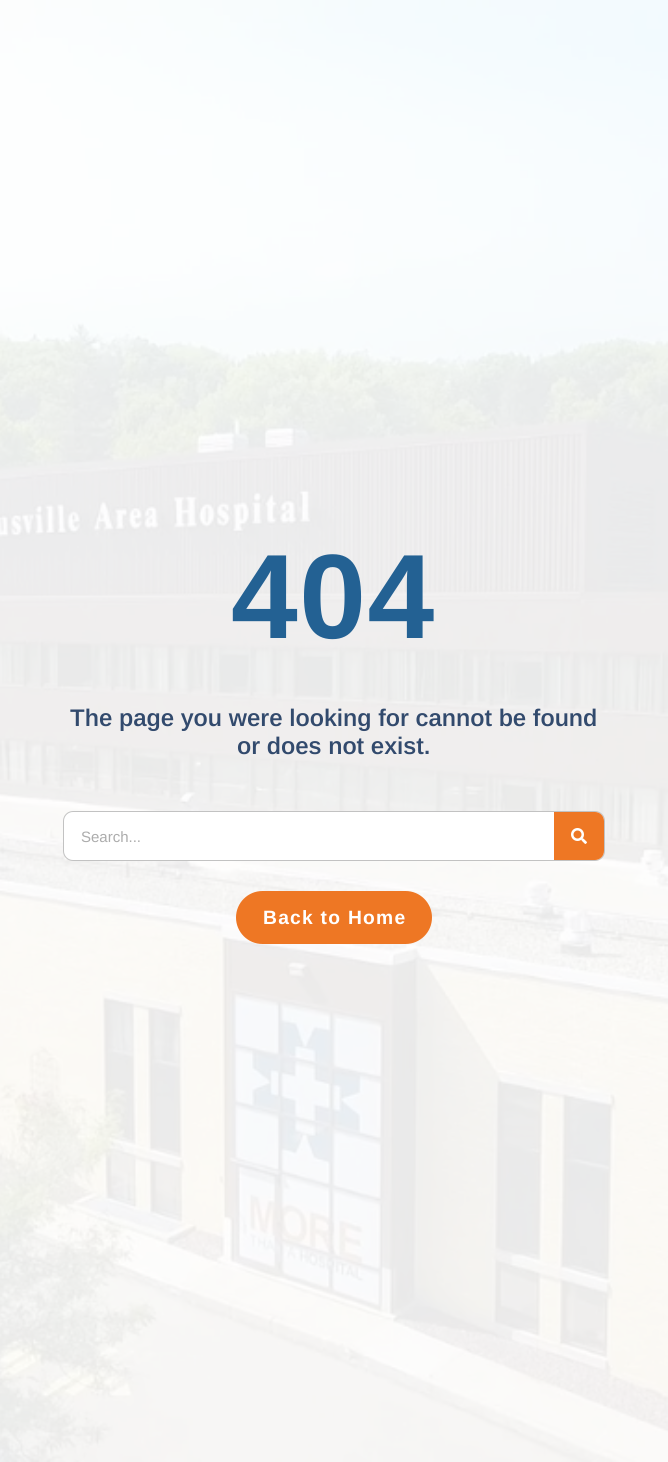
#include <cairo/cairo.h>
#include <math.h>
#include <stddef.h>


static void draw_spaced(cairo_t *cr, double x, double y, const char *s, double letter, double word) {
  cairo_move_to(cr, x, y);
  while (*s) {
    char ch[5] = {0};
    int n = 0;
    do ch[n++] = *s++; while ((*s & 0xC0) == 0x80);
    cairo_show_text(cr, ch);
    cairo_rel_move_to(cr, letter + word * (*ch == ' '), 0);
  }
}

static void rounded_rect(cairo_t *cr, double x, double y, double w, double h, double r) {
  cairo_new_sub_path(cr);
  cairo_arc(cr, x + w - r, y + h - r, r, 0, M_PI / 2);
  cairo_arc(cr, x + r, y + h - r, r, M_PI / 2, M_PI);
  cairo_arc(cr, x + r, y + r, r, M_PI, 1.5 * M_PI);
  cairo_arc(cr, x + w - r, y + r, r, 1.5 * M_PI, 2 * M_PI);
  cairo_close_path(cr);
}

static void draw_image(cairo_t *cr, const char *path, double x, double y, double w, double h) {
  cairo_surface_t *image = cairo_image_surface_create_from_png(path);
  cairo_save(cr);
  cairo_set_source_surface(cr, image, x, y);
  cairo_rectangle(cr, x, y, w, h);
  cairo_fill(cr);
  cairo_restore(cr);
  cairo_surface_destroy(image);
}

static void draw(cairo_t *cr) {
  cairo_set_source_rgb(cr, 1, 1, 1);
  cairo_paint(cr);
  draw_image(cr, "images/1.png", 0, 0, 668, 1462);
  cairo_set_source_rgb(cr, 1, 1, 1);
  rounded_rect(cr, 63.5, 811.5, 541, 49, 9.5);
  cairo_fill_preserve(cr);
  cairo_set_source_rgb(cr, 194 / 255.0, 194 / 255.0, 194 / 255.0);
  cairo_set_line_width(cr, 1);
  cairo_stroke(cr);
  cairo_set_source_rgb(cr, 238 / 255.0, 119 / 255.0, 36 / 255.0);
  cairo_new_path(cr);
  cairo_move_to(cr, 554, 812);
  cairo_line_to(cr, 595, 812);
  cairo_curve_to(cr, 600, 812, 604, 816, 604, 821);
  cairo_line_to(cr, 604, 851);
  cairo_curve_to(cr, 604, 856, 600, 860, 595, 860);
  cairo_line_to(cr, 554, 860);
  cairo_close_path(cr);
  cairo_fill(cr);
  draw_image(cr, "images/2.png", 571, 828, 16, 16);
  rounded_rect(cr, 237.5, 892.5, 193, 50, 25);
  cairo_fill_preserve(cr);
  cairo_set_line_width(cr, 3);
  cairo_stroke(cr);
  cairo_select_font_face(cr, "Liberation Sans", CAIRO_FONT_SLANT_NORMAL, CAIRO_FONT_WEIGHT_BOLD);
  cairo_set_font_size(cr, 120);
  cairo_set_source_rgb(cr, 35 / 255.0, 97 / 255.0, 147 / 255.0);
  draw_spaced(cr, 231, 638, "404", 1.5, 0);
  cairo_select_font_face(cr, "Arimo SemiBold", CAIRO_FONT_SLANT_NORMAL, CAIRO_FONT_WEIGHT_NORMAL);
  cairo_set_font_size(cr, 24);
  cairo_set_source_rgb(cr, 50 / 255.0, 74 / 255.0, 109 / 255.0);
  cairo_move_to(cr, 70, 726);
  cairo_show_text(cr, "The page you were looking for cannot be found");
  cairo_move_to(cr, 237, 754);
  cairo_show_text(cr, "or does not exist.");
  cairo_select_font_face(cr, "Arimo", CAIRO_FONT_SLANT_NORMAL, CAIRO_FONT_WEIGHT_NORMAL);
  cairo_set_font_size(cr, 15);
  cairo_set_source_rgb(cr, 172 / 255.0, 172 / 255.0, 172 / 255.0);
  cairo_move_to(cr, 81, 842);
  cairo_show_text(cr, "Search...");
  cairo_select_font_face(cr, "Liberation Sans", CAIRO_FONT_SLANT_NORMAL, CAIRO_FONT_WEIGHT_BOLD);
  cairo_set_font_size(cr, 19.25);
  cairo_set_source_rgb(cr, 1, 1, 1);
  draw_spaced(cr, 263, 924, "Back to Home", 1.25, 0);
}

int main(void) {
  cairo_surface_t *surface = cairo_image_surface_create(CAIRO_FORMAT_RGB24, 668, 1462);
  cairo_t *cr = cairo_create(surface);
  cairo_font_options_t *options = cairo_font_options_create();
  cairo_font_options_set_hint_metrics(options, CAIRO_HINT_METRICS_OFF);
  cairo_font_options_set_hint_style(options, CAIRO_HINT_STYLE_NONE);
  cairo_set_font_options(cr, options);
  cairo_set_miter_limit(cr, 4);
  draw(cr);
  cairo_surface_write_to_png(surface, "out.png");
  cairo_font_options_destroy(options);
  cairo_destroy(cr);
  cairo_surface_destroy(surface);
  return 0;
}
